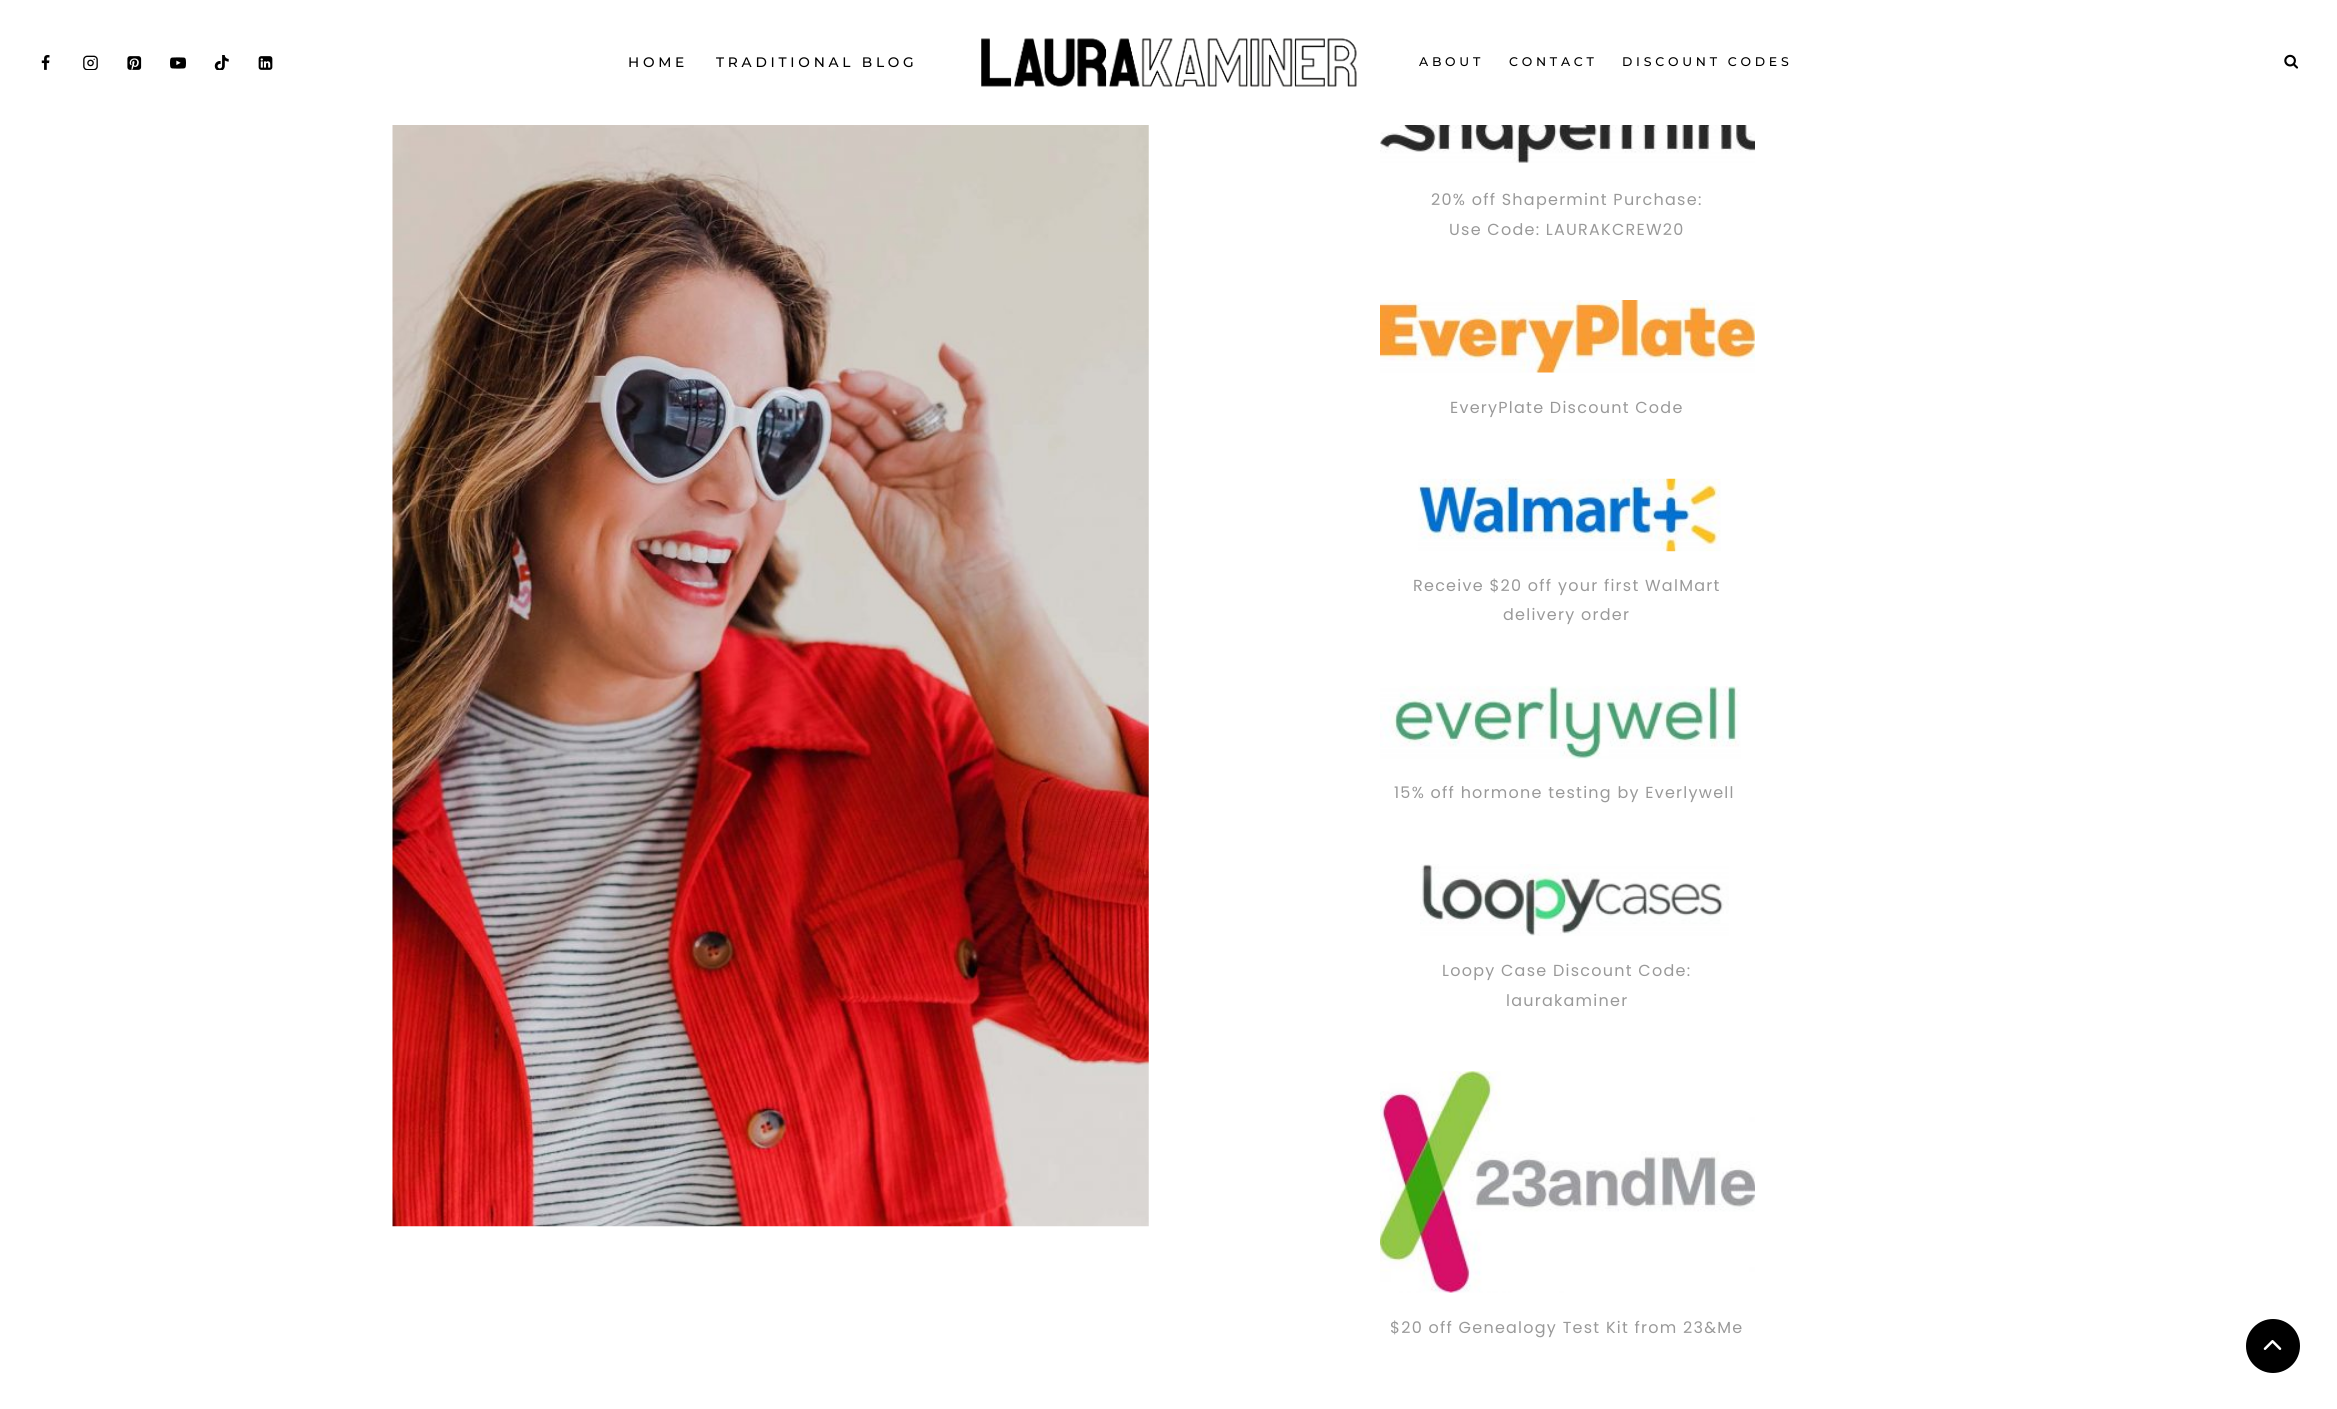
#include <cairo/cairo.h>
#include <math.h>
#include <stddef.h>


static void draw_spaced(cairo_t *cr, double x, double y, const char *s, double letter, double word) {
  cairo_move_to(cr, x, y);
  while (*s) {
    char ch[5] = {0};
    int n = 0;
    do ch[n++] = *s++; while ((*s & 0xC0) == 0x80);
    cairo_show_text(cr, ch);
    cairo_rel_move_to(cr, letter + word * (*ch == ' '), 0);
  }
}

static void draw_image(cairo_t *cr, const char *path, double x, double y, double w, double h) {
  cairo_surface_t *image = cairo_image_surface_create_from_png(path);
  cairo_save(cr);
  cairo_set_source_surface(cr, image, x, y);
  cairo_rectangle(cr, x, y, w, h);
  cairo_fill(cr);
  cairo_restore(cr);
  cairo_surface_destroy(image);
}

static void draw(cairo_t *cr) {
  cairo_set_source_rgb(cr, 1, 1, 1);
  cairo_paint(cr);
  draw_image(cr, "images/1.png", 41, 55, 9, 15);
  draw_image(cr, "images/2.png", 83, 55, 15, 15);
  draw_image(cr, "images/3.png", 127, 56, 15, 14);
  draw_image(cr, "images/4.png", 170, 57, 16, 12);
  draw_image(cr, "images/5.png", 214, 55, 15, 15);
  draw_image(cr, "images/6.png", 258, 56, 15, 14);
  draw_image(cr, "images/7.png", 981, 38, 376, 49);
  draw_image(cr, "images/8.png", 2284, 54, 15, 15);
  draw_image(cr, "images/9.png", 392, 125, 757, 1102);
  draw_image(cr, "images/10.png", 1380, 125, 375, 38);
  draw_image(cr, "images/11.png", 1380, 300, 375, 73);
  draw_image(cr, "images/12.png", 1418, 478, 303, 74);
  draw_image(cr, "images/13.png", 1380, 686, 361, 73);
  draw_image(cr, "images/14.png", 1420, 864, 309, 72);
  draw_image(cr, "images/15.png", 1380, 1071, 375, 222);
  cairo_set_source_rgb(cr, 0, 0, 0);
  cairo_arc(cr, 2273, 1346, 27, 0, 2 * M_PI);
  cairo_fill(cr);
  draw_image(cr, "images/16.png", 2263, 1340, 19, 10);
  cairo_select_font_face(cr, "Montserrat Thin", CAIRO_FONT_SLANT_NORMAL, CAIRO_FONT_WEIGHT_NORMAL);
  cairo_set_font_size(cr, 13.75);
  draw_spaced(cr, 628, 67, "HOME", 3.75, 0);
  draw_spaced(cr, 716, 67, "TRADITIONAL BLOG", 3.75, 0);
  cairo_set_font_size(cr, 12.5);
  draw_spaced(cr, 1419, 66, "ABOUT", 3.75, 0);
  draw_spaced(cr, 1509, 66, "CONTACT", 3.75, 0);
  draw_spaced(cr, 1622, 66, "DISCOUNT CODES", 3.75, 0);
  cairo_select_font_face(cr, "Poppins", CAIRO_FONT_SLANT_NORMAL, CAIRO_FONT_WEIGHT_NORMAL);
  cairo_set_font_size(cr, 16);
  cairo_set_source_rgb(cr, 153 / 255.0, 153 / 255.0, 153 / 255.0);
  draw_spaced(cr, 1431, 205, "20% off Shapermint Purchase:", 1.25, 0);
  draw_spaced(cr, 1449, 235, "Use Code: LAURAKCREW20", 1.25, 0);
  draw_spaced(cr, 1450, 413, "EveryPlate Discount Code", 1.25, 0);
  draw_spaced(cr, 1413, 591, "Receive $20 off your first WalMart", 1.25, 0);
  draw_spaced(cr, 1503, 620, "delivery order", 1.25, 0);
  draw_spaced(cr, 1394, 798, "15% off hormone testing by Everlywell", 1.25, 0);
  draw_spaced(cr, 1442, 976, "Loopy Case Discount Code:", 1.25, 0);
  draw_spaced(cr, 1506, 1006, "laurakaminer", 1.25, 0);
  draw_spaced(cr, 1390, 1333, "$20 off Genealogy Test Kit from 23&Me", 1.25, 0);
}

int main(void) {
  cairo_surface_t *surface = cairo_image_surface_create(CAIRO_FORMAT_RGB24, 2337, 1409);
  cairo_t *cr = cairo_create(surface);
  cairo_font_options_t *options = cairo_font_options_create();
  cairo_font_options_set_hint_metrics(options, CAIRO_HINT_METRICS_OFF);
  cairo_font_options_set_hint_style(options, CAIRO_HINT_STYLE_NONE);
  cairo_set_font_options(cr, options);
  cairo_set_miter_limit(cr, 4);
  draw(cr);
  cairo_surface_write_to_png(surface, "out.png");
  cairo_font_options_destroy(options);
  cairo_destroy(cr);
  cairo_surface_destroy(surface);
  return 0;
}
